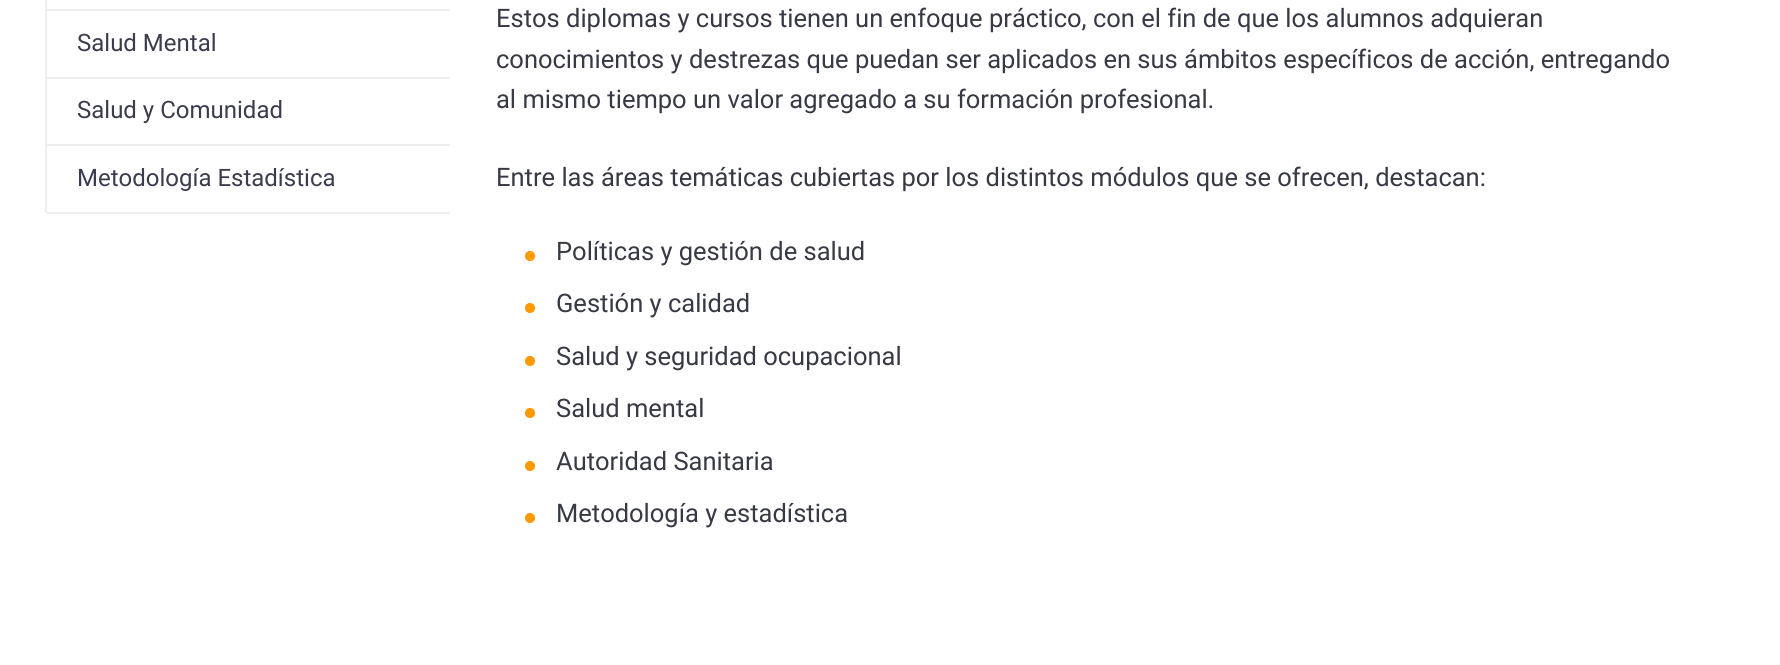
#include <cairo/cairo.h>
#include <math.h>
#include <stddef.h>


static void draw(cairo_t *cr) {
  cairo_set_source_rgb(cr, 1, 1, 1);
  cairo_paint(cr);
  cairo_set_source_rgb(cr, 238 / 255.0, 238 / 255.0, 238 / 255.0);
  cairo_rectangle(cr, 45, 0, 2, 213);
  cairo_fill(cr);
  cairo_rectangle(cr, 47, 9, 403, 2);
  cairo_fill(cr);
  cairo_rectangle(cr, 47, 77, 403, 2);
  cairo_fill(cr);
  cairo_rectangle(cr, 47, 144, 403, 2);
  cairo_fill(cr);
  cairo_rectangle(cr, 47, 212, 403, 2);
  cairo_fill(cr);
  cairo_set_source_rgb(cr, 1, 153 / 255.0, 0);
  cairo_arc(cr, 530, 256, 5, 0, 2 * M_PI);
  cairo_fill(cr);
  cairo_arc(cr, 530, 308, 5, 0, 2 * M_PI);
  cairo_fill(cr);
  cairo_arc(cr, 530, 361, 5, 0, 2 * M_PI);
  cairo_fill(cr);
  cairo_arc(cr, 530, 413, 5, 0, 2 * M_PI);
  cairo_fill(cr);
  cairo_arc(cr, 530, 466, 5, 0, 2 * M_PI);
  cairo_fill(cr);
  cairo_arc(cr, 530, 518, 5, 0, 2 * M_PI);
  cairo_fill(cr);
  cairo_select_font_face(cr, "Roboto", CAIRO_FONT_SLANT_NORMAL, CAIRO_FONT_WEIGHT_NORMAL);
  cairo_set_font_size(cr, 24);
  cairo_set_source_rgb(cr, 59 / 255.0, 60 / 255.0, 77 / 255.0);
  cairo_move_to(cr, 77, 51);
  cairo_show_text(cr, "Salud Mental");
  cairo_move_to(cr, 77, 118);
  cairo_show_text(cr, "Salud y Comunidad");
  cairo_move_to(cr, 77, 186);
  cairo_show_text(cr, "Metodología Estadística");
  cairo_set_font_size(cr, 25.5);
  cairo_set_source_rgb(cr, 55 / 255.0, 57 / 255.0, 68 / 255.0);
  cairo_move_to(cr, 496, 27);
  cairo_show_text(cr, "Estos diplomas y cursos tienen un enfoque práctico, con el fin de que los alumnos adquieran");
  cairo_move_to(cr, 496, 68);
  cairo_show_text(cr, "conocimientos y destrezas que puedan ser aplicados en sus ámbitos específicos de acción, entregando");
  cairo_move_to(cr, 496, 108);
  cairo_show_text(cr, "al mismo tiempo un valor agregado a su formación profesional.");
  cairo_move_to(cr, 496, 186);
  cairo_show_text(cr, "Entre las áreas temáticas cubiertas por los distintos módulos que se ofrecen, destacan:");
  cairo_move_to(cr, 556, 260);
  cairo_show_text(cr, "Políticas y gestión de salud");
  cairo_move_to(cr, 556, 312);
  cairo_show_text(cr, "Gestión y calidad");
  cairo_move_to(cr, 556, 365);
  cairo_show_text(cr, "Salud y seguridad ocupacional");
  cairo_move_to(cr, 556, 417);
  cairo_show_text(cr, "Salud mental");
  cairo_move_to(cr, 556, 470);
  cairo_show_text(cr, "Autoridad Sanitaria");
  cairo_move_to(cr, 556, 522);
  cairo_show_text(cr, "Metodología y estadística");
}

int main(void) {
  cairo_surface_t *surface = cairo_image_surface_create(CAIRO_FORMAT_RGB24, 1780, 665);
  cairo_t *cr = cairo_create(surface);
  cairo_font_options_t *options = cairo_font_options_create();
  cairo_font_options_set_hint_metrics(options, CAIRO_HINT_METRICS_OFF);
  cairo_font_options_set_hint_style(options, CAIRO_HINT_STYLE_NONE);
  cairo_set_font_options(cr, options);
  cairo_set_miter_limit(cr, 4);
  draw(cr);
  cairo_surface_write_to_png(surface, "out.png");
  cairo_font_options_destroy(options);
  cairo_destroy(cr);
  cairo_surface_destroy(surface);
  return 0;
}
